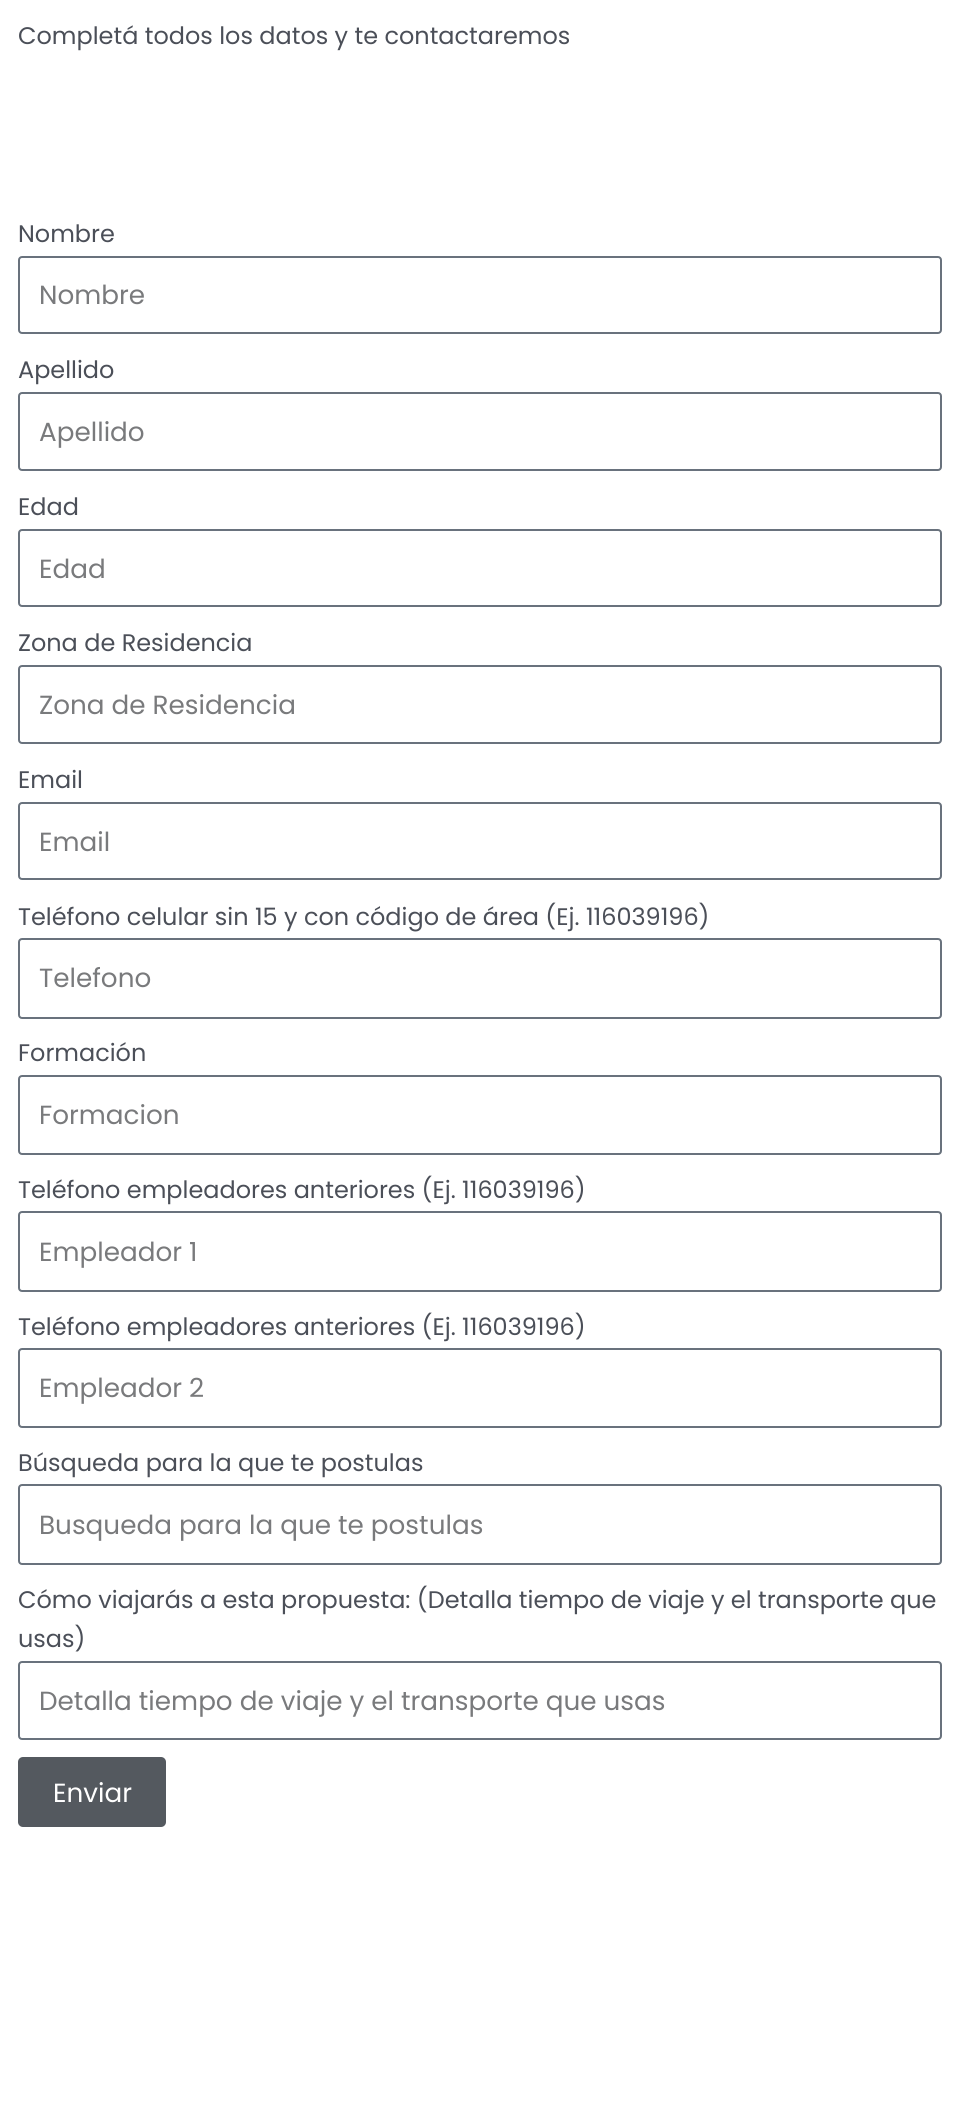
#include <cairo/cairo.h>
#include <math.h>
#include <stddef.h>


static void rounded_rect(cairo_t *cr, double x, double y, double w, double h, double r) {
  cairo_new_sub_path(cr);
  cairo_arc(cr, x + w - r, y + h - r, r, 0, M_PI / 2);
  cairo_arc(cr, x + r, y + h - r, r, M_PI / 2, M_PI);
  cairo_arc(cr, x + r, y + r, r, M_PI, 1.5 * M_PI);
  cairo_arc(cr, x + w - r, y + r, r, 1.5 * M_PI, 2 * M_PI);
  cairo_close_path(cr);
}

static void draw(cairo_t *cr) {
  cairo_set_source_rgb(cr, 1, 1, 1);
  cairo_paint(cr);
  rounded_rect(cr, 19, 257, 922, 76, 3);
  cairo_set_source_rgb(cr, 105 / 255.0, 114 / 255.0, 125 / 255.0);
  cairo_stroke(cr);
  rounded_rect(cr, 19, 393, 922, 77, 3);
  cairo_stroke(cr);
  rounded_rect(cr, 19, 530, 922, 76, 3);
  cairo_stroke(cr);
  rounded_rect(cr, 19, 666, 922, 77, 3);
  cairo_stroke(cr);
  rounded_rect(cr, 19, 803, 922, 76, 3);
  cairo_stroke(cr);
  rounded_rect(cr, 19, 939, 922, 79, 3);
  cairo_stroke(cr);
  rounded_rect(cr, 19, 1076, 922, 78, 3);
  cairo_stroke(cr);
  rounded_rect(cr, 19, 1212, 922, 79, 3);
  cairo_stroke(cr);
  rounded_rect(cr, 19, 1349, 922, 78, 3);
  cairo_stroke(cr);
  rounded_rect(cr, 19, 1485, 922, 79, 3);
  cairo_stroke(cr);
  rounded_rect(cr, 19, 1662, 922, 77, 3);
  cairo_stroke(cr);
  cairo_set_source_rgb(cr, 84 / 255.0, 89 / 255.0, 95 / 255.0);
  rounded_rect(cr, 18, 1757, 148, 70, 5);
  cairo_fill(cr);
  cairo_select_font_face(cr, "Poppins", CAIRO_FONT_SLANT_NORMAL, CAIRO_FONT_WEIGHT_NORMAL);
  cairo_set_font_size(cr, 23.95);
  cairo_set_source_rgb(cr, 75 / 255.0, 79 / 255.0, 88 / 255.0);
  cairo_move_to(cr, 18, 44);
  cairo_show_text(cr, "Completá todos los datos y te contactaremos");
  cairo_move_to(cr, 18, 242);
  cairo_show_text(cr, "Nombre");
  cairo_set_font_size(cr, 26.25);
  cairo_set_source_rgb(cr, 121 / 255.0, 122 / 255.0, 124 / 255.0);
  cairo_move_to(cr, 39, 304);
  cairo_show_text(cr, "Nombre");
  cairo_set_font_size(cr, 23.95);
  cairo_set_source_rgb(cr, 75 / 255.0, 79 / 255.0, 88 / 255.0);
  cairo_move_to(cr, 18, 378);
  cairo_show_text(cr, "Apellido");
  cairo_set_font_size(cr, 26.25);
  cairo_set_source_rgb(cr, 121 / 255.0, 122 / 255.0, 124 / 255.0);
  cairo_move_to(cr, 39, 441);
  cairo_show_text(cr, "Apellido");
  cairo_set_font_size(cr, 23.95);
  cairo_set_source_rgb(cr, 75 / 255.0, 79 / 255.0, 88 / 255.0);
  cairo_move_to(cr, 18, 515);
  cairo_show_text(cr, "Edad");
  cairo_set_font_size(cr, 26.25);
  cairo_set_source_rgb(cr, 121 / 255.0, 122 / 255.0, 124 / 255.0);
  cairo_move_to(cr, 39, 578);
  cairo_show_text(cr, "Edad");
  cairo_set_font_size(cr, 23.95);
  cairo_set_source_rgb(cr, 75 / 255.0, 79 / 255.0, 88 / 255.0);
  cairo_move_to(cr, 18, 651);
  cairo_show_text(cr, "Zona de Residencia");
  cairo_set_font_size(cr, 26.25);
  cairo_set_source_rgb(cr, 121 / 255.0, 122 / 255.0, 124 / 255.0);
  cairo_move_to(cr, 39, 714);
  cairo_show_text(cr, "Zona de Residencia");
  cairo_set_font_size(cr, 23.95);
  cairo_set_source_rgb(cr, 75 / 255.0, 79 / 255.0, 88 / 255.0);
  cairo_move_to(cr, 18, 788);
  cairo_show_text(cr, "Email");
  cairo_set_font_size(cr, 26.25);
  cairo_set_source_rgb(cr, 121 / 255.0, 122 / 255.0, 124 / 255.0);
  cairo_move_to(cr, 39, 851);
  cairo_show_text(cr, "Email");
  cairo_set_font_size(cr, 23.95);
  cairo_set_source_rgb(cr, 75 / 255.0, 79 / 255.0, 88 / 255.0);
  cairo_move_to(cr, 18, 925);
  cairo_show_text(cr, "Teléfono celular sin 15 y con código de área (Ej. 116039196)");
  cairo_set_font_size(cr, 26.25);
  cairo_set_source_rgb(cr, 121 / 255.0, 122 / 255.0, 124 / 255.0);
  cairo_move_to(cr, 39, 987);
  cairo_show_text(cr, "Telefono");
  cairo_set_font_size(cr, 23.95);
  cairo_set_source_rgb(cr, 75 / 255.0, 79 / 255.0, 88 / 255.0);
  cairo_move_to(cr, 18, 1061);
  cairo_show_text(cr, "Formación");
  cairo_set_font_size(cr, 26.25);
  cairo_set_source_rgb(cr, 121 / 255.0, 122 / 255.0, 124 / 255.0);
  cairo_move_to(cr, 39, 1124);
  cairo_show_text(cr, "Formacion");
  cairo_set_font_size(cr, 23.95);
  cairo_set_source_rgb(cr, 75 / 255.0, 79 / 255.0, 88 / 255.0);
  cairo_move_to(cr, 18, 1198);
  cairo_show_text(cr, "Teléfono empleadores anteriores (Ej. 116039196)");
  cairo_set_font_size(cr, 26.25);
  cairo_set_source_rgb(cr, 121 / 255.0, 122 / 255.0, 124 / 255.0);
  cairo_move_to(cr, 39, 1261);
  cairo_show_text(cr, "Empleador 1");
  cairo_set_font_size(cr, 23.95);
  cairo_set_source_rgb(cr, 75 / 255.0, 79 / 255.0, 88 / 255.0);
  cairo_move_to(cr, 18, 1335);
  cairo_show_text(cr, "Teléfono empleadores anteriores (Ej. 116039196)");
  cairo_set_font_size(cr, 26.25);
  cairo_set_source_rgb(cr, 121 / 255.0, 122 / 255.0, 124 / 255.0);
  cairo_move_to(cr, 39, 1397);
  cairo_show_text(cr, "Empleador 2");
  cairo_set_font_size(cr, 23.95);
  cairo_set_source_rgb(cr, 75 / 255.0, 79 / 255.0, 88 / 255.0);
  cairo_move_to(cr, 18, 1471);
  cairo_show_text(cr, "Búsqueda para la que te postulas");
  cairo_set_font_size(cr, 26.25);
  cairo_set_source_rgb(cr, 121 / 255.0, 122 / 255.0, 124 / 255.0);
  cairo_move_to(cr, 39, 1534);
  cairo_show_text(cr, "Busqueda para la que te postulas");
  cairo_set_font_size(cr, 23.95);
  cairo_set_source_rgb(cr, 75 / 255.0, 79 / 255.0, 88 / 255.0);
  cairo_move_to(cr, 18, 1608);
  cairo_show_text(cr, "Cómo viajarás a esta propuesta: (Detalla tiempo de viaje y el transporte que");
  cairo_move_to(cr, 18, 1647);
  cairo_show_text(cr, "usas)");
  cairo_set_font_size(cr, 26.25);
  cairo_set_source_rgb(cr, 121 / 255.0, 122 / 255.0, 124 / 255.0);
  cairo_move_to(cr, 39, 1710);
  cairo_show_text(cr, "Detalla tiempo de viaje y el transporte que usas");
  cairo_set_source_rgb(cr, 1, 1, 1);
  cairo_move_to(cr, 53, 1802);
  cairo_show_text(cr, "Enviar");
}

int main(void) {
  cairo_surface_t *surface = cairo_image_surface_create(CAIRO_FORMAT_RGB24, 958, 2116);
  cairo_t *cr = cairo_create(surface);
  cairo_font_options_t *options = cairo_font_options_create();
  cairo_font_options_set_hint_metrics(options, CAIRO_HINT_METRICS_OFF);
  cairo_font_options_set_hint_style(options, CAIRO_HINT_STYLE_NONE);
  cairo_set_font_options(cr, options);
  cairo_set_miter_limit(cr, 4);
  draw(cr);
  cairo_surface_write_to_png(surface, "out.png");
  cairo_font_options_destroy(options);
  cairo_destroy(cr);
  cairo_surface_destroy(surface);
  return 0;
}
